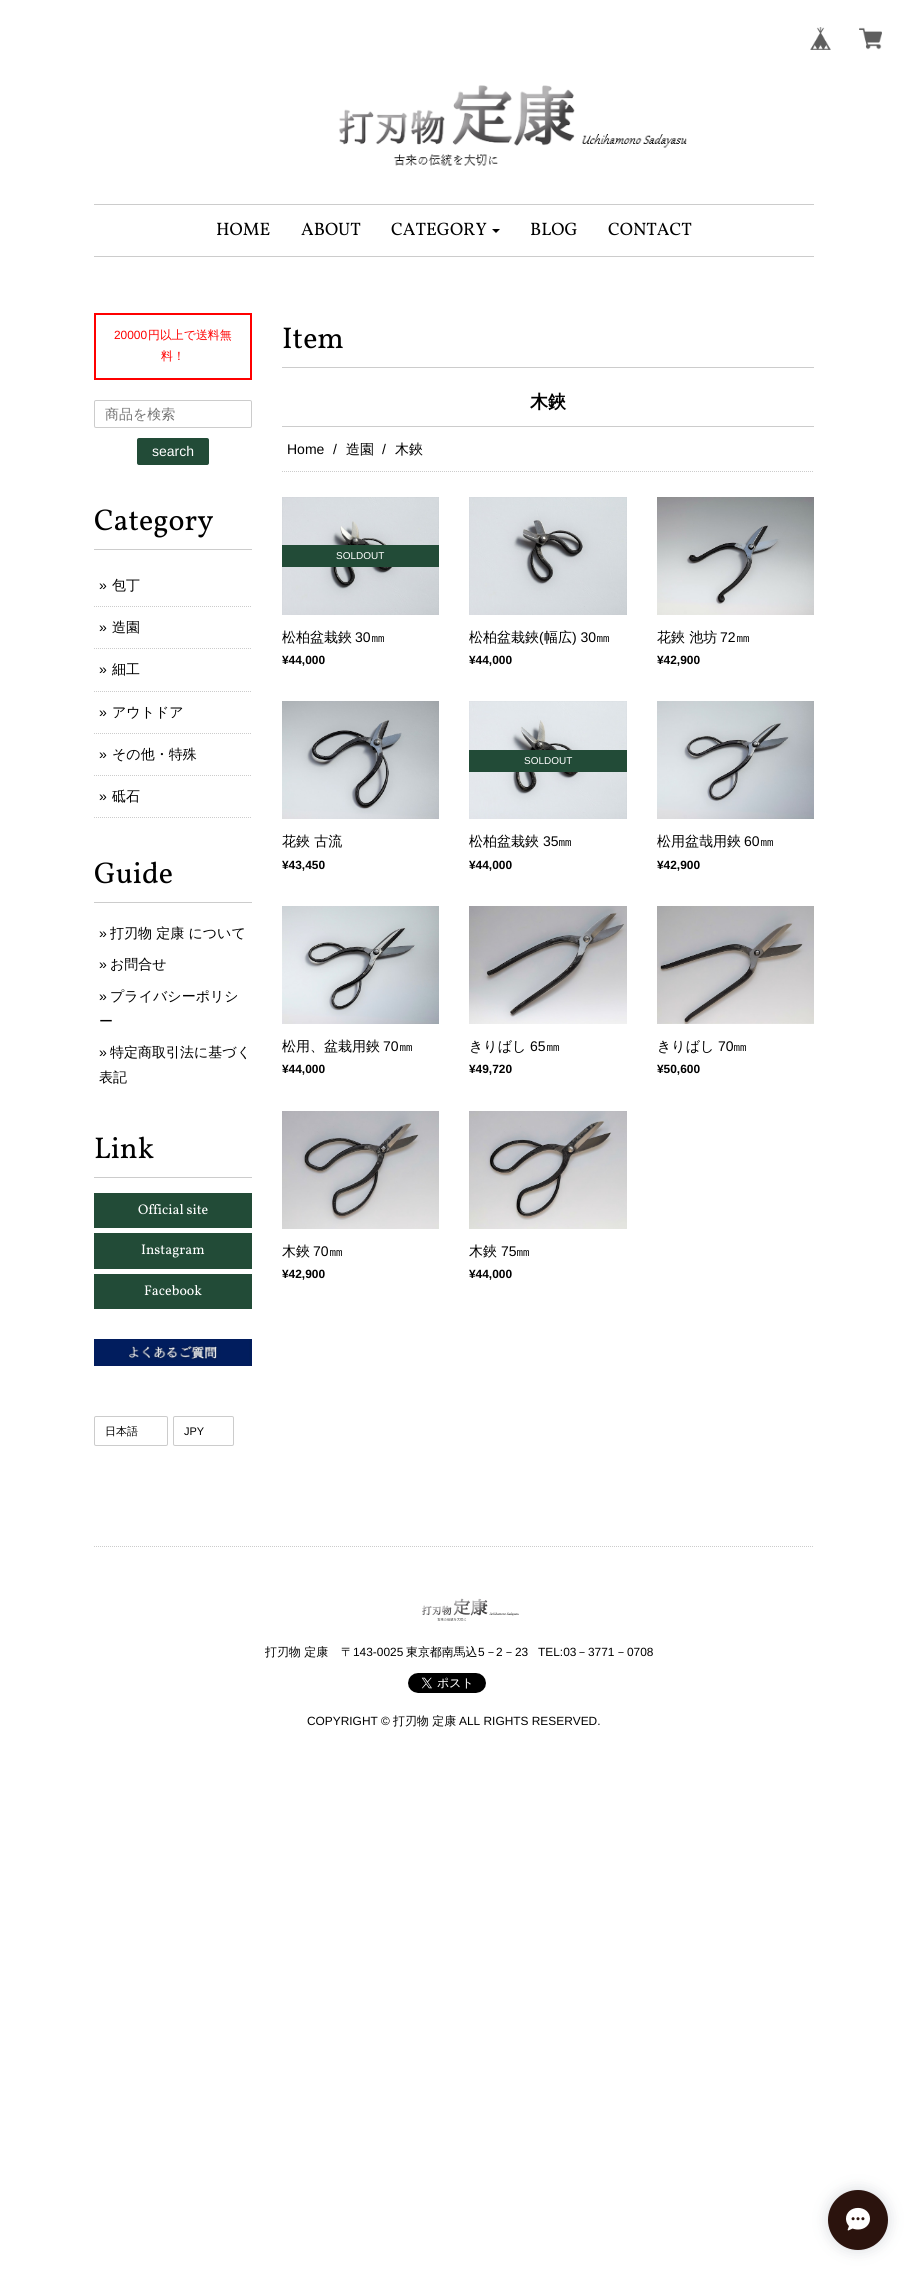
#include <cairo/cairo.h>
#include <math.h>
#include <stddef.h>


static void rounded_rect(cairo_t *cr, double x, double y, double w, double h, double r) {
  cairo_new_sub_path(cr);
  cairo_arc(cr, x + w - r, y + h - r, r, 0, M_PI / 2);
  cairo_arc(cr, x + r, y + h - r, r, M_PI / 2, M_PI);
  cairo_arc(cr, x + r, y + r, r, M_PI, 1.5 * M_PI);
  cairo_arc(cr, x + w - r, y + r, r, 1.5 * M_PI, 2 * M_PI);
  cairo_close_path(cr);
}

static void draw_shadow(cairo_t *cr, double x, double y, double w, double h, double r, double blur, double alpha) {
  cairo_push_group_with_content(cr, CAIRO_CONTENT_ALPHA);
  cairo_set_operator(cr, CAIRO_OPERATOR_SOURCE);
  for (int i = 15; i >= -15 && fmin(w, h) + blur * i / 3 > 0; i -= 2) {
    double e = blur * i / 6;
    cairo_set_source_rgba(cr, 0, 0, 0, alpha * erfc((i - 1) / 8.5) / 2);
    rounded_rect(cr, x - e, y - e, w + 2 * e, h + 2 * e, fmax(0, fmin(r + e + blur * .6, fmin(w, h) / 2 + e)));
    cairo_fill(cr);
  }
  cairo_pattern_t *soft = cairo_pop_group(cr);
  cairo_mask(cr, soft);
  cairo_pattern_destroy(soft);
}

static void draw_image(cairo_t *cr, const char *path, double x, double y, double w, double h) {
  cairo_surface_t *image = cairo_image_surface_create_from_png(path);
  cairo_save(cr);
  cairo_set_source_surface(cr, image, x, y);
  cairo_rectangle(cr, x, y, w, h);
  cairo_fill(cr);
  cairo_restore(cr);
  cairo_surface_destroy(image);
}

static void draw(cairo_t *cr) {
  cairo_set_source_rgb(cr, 1, 1, 1);
  cairo_paint(cr);
  draw_image(cr, "images/1.png", 810, 27, 21, 23);
  draw_image(cr, "images/2.png", 859, 27, 23, 23);
  draw_image(cr, "images/3.png", 339, 85, 348, 81);
  cairo_set_source_rgb(cr, 204 / 255.0, 204 / 255.0, 204 / 255.0);
  cairo_rectangle(cr, 94, 204, 720, 1);
  cairo_fill(cr);
  cairo_rectangle(cr, 94, 256, 720, 1);
  cairo_fill(cr);
  cairo_set_source_rgb(cr, 0, 0, 0);
  cairo_new_path(cr);
  cairo_move_to(cr, 492, 229);
  cairo_line_to(cr, 500, 229);
  cairo_line_to(cr, 496, 233);
  cairo_close_path(cr);
  cairo_fill(cr);
  cairo_rectangle(cr, 95, 314, 156, 65);
  cairo_set_source_rgb(cr, 1, 0, 0);
  cairo_stroke(cr);
  rounded_rect(cr, 94.5, 400.5, 157, 27, 1.5);
  cairo_set_source_rgb(cr, 204 / 255.0, 204 / 255.0, 204 / 255.0);
  cairo_set_line_width(cr, 1);
  cairo_stroke(cr);
  cairo_set_source_rgb(cr, 34 / 255.0, 75 / 255.0, 55 / 255.0);
  rounded_rect(cr, 137, 438, 72, 27, 2);
  cairo_fill(cr);
  cairo_set_source_rgb(cr, 204 / 255.0, 204 / 255.0, 204 / 255.0);
  cairo_rectangle(cr, 94, 549, 158, 1);
  cairo_fill(cr);
  cairo_new_path(cr);
  cairo_move_to(cr, 94, 606.5);
  cairo_line_to(cr, 252, 606.5);
  cairo_set_dash(cr, (double[]){1, 1}, 2, 0);
  cairo_stroke(cr);
  cairo_new_path(cr);
  cairo_move_to(cr, 94, 648.5);
  cairo_line_to(cr, 252, 648.5);
  cairo_stroke(cr);
  cairo_new_path(cr);
  cairo_move_to(cr, 94, 691.5);
  cairo_line_to(cr, 252, 691.5);
  cairo_stroke(cr);
  cairo_new_path(cr);
  cairo_move_to(cr, 94, 733.5);
  cairo_line_to(cr, 252, 733.5);
  cairo_stroke(cr);
  cairo_new_path(cr);
  cairo_move_to(cr, 94, 775.5);
  cairo_line_to(cr, 252, 775.5);
  cairo_stroke(cr);
  cairo_new_path(cr);
  cairo_move_to(cr, 94, 817.5);
  cairo_line_to(cr, 252, 817.5);
  cairo_stroke(cr);
  cairo_rectangle(cr, 94, 902, 158, 1);
  cairo_fill(cr);
  cairo_rectangle(cr, 94, 1177, 158, 1);
  cairo_fill(cr);
  cairo_set_source_rgb(cr, 34 / 255.0, 75 / 255.0, 55 / 255.0);
  cairo_rectangle(cr, 94, 1193, 158, 35);
  cairo_fill(cr);
  cairo_rectangle(cr, 94, 1233, 158, 36);
  cairo_fill(cr);
  cairo_rectangle(cr, 94, 1274, 158, 35);
  cairo_fill(cr);
  draw_image(cr, "images/4.png", 94, 1339, 158, 27);
  rounded_rect(cr, 94.5, 1416.5, 73, 29, 1.5);
  cairo_set_source_rgb(cr, 204 / 255.0, 204 / 255.0, 204 / 255.0);
  cairo_set_dash(cr, NULL, 0, 0);
  cairo_stroke(cr);
  rounded_rect(cr, 173.5, 1416.5, 60, 29, 1.5);
  cairo_stroke(cr);
  cairo_rectangle(cr, 282, 367, 532, 1);
  cairo_fill(cr);
  cairo_rectangle(cr, 282, 426, 532, 1);
  cairo_fill(cr);
  cairo_new_path(cr);
  cairo_move_to(cr, 282, 471.5);
  cairo_line_to(cr, 814, 471.5);
  cairo_set_dash(cr, (double[]){1, 1}, 2, 0);
  cairo_stroke(cr);
  draw_image(cr, "images/5.png", 282, 497, 157, 118);
  cairo_set_source_rgb(cr, 34 / 255.0, 75 / 255.0, 55 / 255.0);
  cairo_rectangle(cr, 282, 545, 157, 22);
  cairo_fill(cr);
  draw_image(cr, "images/6.png", 469, 497, 158, 118);
  draw_image(cr, "images/7.png", 657, 497, 157, 118);
  draw_image(cr, "images/8.png", 282, 701, 157, 118);
  draw_image(cr, "images/9.png", 469, 701, 158, 118);
  cairo_rectangle(cr, 469, 750, 158, 22);
  cairo_fill(cr);
  draw_image(cr, "images/10.png", 657, 701, 157, 118);
  draw_image(cr, "images/11.png", 282, 906, 157, 118);
  draw_image(cr, "images/12.png", 469, 906, 158, 118);
  draw_image(cr, "images/13.png", 657, 906, 157, 118);
  draw_image(cr, "images/14.png", 282, 1111, 157, 118);
  draw_image(cr, "images/15.png", 469, 1111, 158, 118);
  cairo_new_path(cr);
  cairo_move_to(cr, 94, 1546.5);
  cairo_line_to(cr, 814, 1546.5);
  cairo_set_source_rgb(cr, 204 / 255.0, 204 / 255.0, 204 / 255.0);
  cairo_stroke(cr);
  draw_image(cr, "images/16.png", 422, 1598, 97, 23);
  draw_image(cr, "images/17.png", 408, 1673, 78, 20);
  cairo_set_source_rgb(cr, 51 / 255.0, 66 / 255.0, 88 / 255.0);
  draw_shadow(cr, 828, 2190, 60, 60, 30, 7.5, 0.2);
  cairo_set_source_rgb(cr, 43 / 255.0, 19 / 255.0, 13 / 255.0);
  cairo_arc(cr, 858, 2220, 30, 0, 2 * M_PI);
  cairo_fill(cr);
  draw_image(cr, "images/18.png", 846, 2207, 24, 24);
  cairo_select_font_face(cr, "Vollkorn", CAIRO_FONT_SLANT_NORMAL, CAIRO_FONT_WEIGHT_NORMAL);
  cairo_set_font_size(cr, 18);
  cairo_set_source_rgb(cr, 0, 0, 0);
  cairo_move_to(cr, 216, 235);
  cairo_show_text(cr, "HOME");
  cairo_move_to(cr, 301, 235);
  cairo_show_text(cr, "ABOUT");
  cairo_move_to(cr, 391, 235);
  cairo_show_text(cr, "CATEGORY");
  cairo_move_to(cr, 530, 235);
  cairo_show_text(cr, "BLOG");
  cairo_move_to(cr, 608, 235);
  cairo_show_text(cr, "CONTACT");
  cairo_select_font_face(cr, "Liberation Sans", CAIRO_FONT_SLANT_NORMAL, CAIRO_FONT_WEIGHT_NORMAL);
  cairo_set_font_size(cr, 11.9);
  cairo_set_source_rgb(cr, 1, 0, 0);
  cairo_move_to(cr, 114, 339);
  cairo_show_text(cr, "20000");
  cairo_select_font_face(cr, "WenQuanYi Zen Hei Medium", CAIRO_FONT_SLANT_NORMAL, CAIRO_FONT_WEIGHT_NORMAL);
  cairo_move_to(cr, 148, 339);
  cairo_show_text(cr, "円以上で送料無");
  cairo_move_to(cr, 161, 360);
  cairo_show_text(cr, "料！");
  cairo_set_font_size(cr, 14);
  cairo_set_source_rgb(cr, 117 / 255.0, 117 / 255.0, 117 / 255.0);
  cairo_move_to(cr, 105, 419);
  cairo_show_text(cr, "商品を検索");
  cairo_select_font_face(cr, "Liberation Sans", CAIRO_FONT_SLANT_NORMAL, CAIRO_FONT_WEIGHT_NORMAL);
  cairo_set_source_rgb(cr, 1, 1, 1);
  cairo_move_to(cr, 152, 456);
  cairo_show_text(cr, "search");
  cairo_select_font_face(cr, "Vollkorn", CAIRO_FONT_SLANT_NORMAL, CAIRO_FONT_WEIGHT_NORMAL);
  cairo_set_font_size(cr, 30);
  cairo_set_source_rgb(cr, 0, 0, 0);
  cairo_move_to(cr, 94, 530);
  cairo_show_text(cr, "Category");
  cairo_select_font_face(cr, "Liberation Sans", CAIRO_FONT_SLANT_NORMAL, CAIRO_FONT_WEIGHT_NORMAL);
  cairo_set_font_size(cr, 14);
  cairo_move_to(cr, 99, 590);
  cairo_show_text(cr, "»");
  cairo_select_font_face(cr, "WenQuanYi Zen Hei Medium", CAIRO_FONT_SLANT_NORMAL, CAIRO_FONT_WEIGHT_NORMAL);
  cairo_move_to(cr, 112, 590);
  cairo_show_text(cr, "包丁");
  cairo_select_font_face(cr, "Liberation Sans", CAIRO_FONT_SLANT_NORMAL, CAIRO_FONT_WEIGHT_NORMAL);
  cairo_move_to(cr, 99, 632);
  cairo_show_text(cr, "»");
  cairo_select_font_face(cr, "WenQuanYi Zen Hei Medium", CAIRO_FONT_SLANT_NORMAL, CAIRO_FONT_WEIGHT_NORMAL);
  cairo_move_to(cr, 112, 632);
  cairo_show_text(cr, "造園");
  cairo_select_font_face(cr, "Liberation Sans", CAIRO_FONT_SLANT_NORMAL, CAIRO_FONT_WEIGHT_NORMAL);
  cairo_move_to(cr, 99, 674);
  cairo_show_text(cr, "»");
  cairo_select_font_face(cr, "WenQuanYi Zen Hei Medium", CAIRO_FONT_SLANT_NORMAL, CAIRO_FONT_WEIGHT_NORMAL);
  cairo_move_to(cr, 112, 674);
  cairo_show_text(cr, "細工");
  cairo_select_font_face(cr, "Liberation Sans", CAIRO_FONT_SLANT_NORMAL, CAIRO_FONT_WEIGHT_NORMAL);
  cairo_move_to(cr, 99, 717);
  cairo_show_text(cr, "»");
  cairo_select_font_face(cr, "WenQuanYi Zen Hei Medium", CAIRO_FONT_SLANT_NORMAL, CAIRO_FONT_WEIGHT_NORMAL);
  cairo_move_to(cr, 112, 717);
  cairo_show_text(cr, "アウトドア");
  cairo_select_font_face(cr, "Liberation Sans", CAIRO_FONT_SLANT_NORMAL, CAIRO_FONT_WEIGHT_NORMAL);
  cairo_move_to(cr, 99, 759);
  cairo_show_text(cr, "»");
  cairo_select_font_face(cr, "WenQuanYi Zen Hei Medium", CAIRO_FONT_SLANT_NORMAL, CAIRO_FONT_WEIGHT_NORMAL);
  cairo_move_to(cr, 112, 759);
  cairo_show_text(cr, "その他・特殊");
  cairo_select_font_face(cr, "Liberation Sans", CAIRO_FONT_SLANT_NORMAL, CAIRO_FONT_WEIGHT_NORMAL);
  cairo_move_to(cr, 99, 801);
  cairo_show_text(cr, "»");
  cairo_select_font_face(cr, "WenQuanYi Zen Hei Medium", CAIRO_FONT_SLANT_NORMAL, CAIRO_FONT_WEIGHT_NORMAL);
  cairo_move_to(cr, 112, 801);
  cairo_show_text(cr, "砥石");
  cairo_select_font_face(cr, "Vollkorn", CAIRO_FONT_SLANT_NORMAL, CAIRO_FONT_WEIGHT_NORMAL);
  cairo_set_font_size(cr, 30);
  cairo_move_to(cr, 94, 883);
  cairo_show_text(cr, "Guide");
  cairo_select_font_face(cr, "Liberation Sans", CAIRO_FONT_SLANT_NORMAL, CAIRO_FONT_WEIGHT_NORMAL);
  cairo_set_font_size(cr, 14);
  cairo_move_to(cr, 99, 938);
  cairo_show_text(cr, "»");
  cairo_select_font_face(cr, "WenQuanYi Zen Hei Medium", CAIRO_FONT_SLANT_NORMAL, CAIRO_FONT_WEIGHT_NORMAL);
  cairo_move_to(cr, 110, 938);
  cairo_show_text(cr, "打刃物 定康 について");
  cairo_select_font_face(cr, "Liberation Sans", CAIRO_FONT_SLANT_NORMAL, CAIRO_FONT_WEIGHT_NORMAL);
  cairo_move_to(cr, 99, 969);
  cairo_show_text(cr, "»");
  cairo_select_font_face(cr, "WenQuanYi Zen Hei Medium", CAIRO_FONT_SLANT_NORMAL, CAIRO_FONT_WEIGHT_NORMAL);
  cairo_move_to(cr, 110, 969);
  cairo_show_text(cr, "お問合せ");
  cairo_select_font_face(cr, "Liberation Sans", CAIRO_FONT_SLANT_NORMAL, CAIRO_FONT_WEIGHT_NORMAL);
  cairo_move_to(cr, 99, 1001);
  cairo_show_text(cr, "»");
  cairo_select_font_face(cr, "WenQuanYi Zen Hei Medium", CAIRO_FONT_SLANT_NORMAL, CAIRO_FONT_WEIGHT_NORMAL);
  cairo_move_to(cr, 110, 1001);
  cairo_show_text(cr, "プライバシーポリシ");
  cairo_move_to(cr, 99, 1026);
  cairo_show_text(cr, "ー");
  cairo_select_font_face(cr, "Liberation Sans", CAIRO_FONT_SLANT_NORMAL, CAIRO_FONT_WEIGHT_NORMAL);
  cairo_move_to(cr, 99, 1057);
  cairo_show_text(cr, "»");
  cairo_select_font_face(cr, "WenQuanYi Zen Hei Medium", CAIRO_FONT_SLANT_NORMAL, CAIRO_FONT_WEIGHT_NORMAL);
  cairo_move_to(cr, 110, 1057);
  cairo_show_text(cr, "特定商取引法に基づく");
  cairo_move_to(cr, 99, 1082);
  cairo_show_text(cr, "表記");
  cairo_select_font_face(cr, "Vollkorn", CAIRO_FONT_SLANT_NORMAL, CAIRO_FONT_WEIGHT_NORMAL);
  cairo_set_font_size(cr, 30);
  cairo_move_to(cr, 94, 1158);
  cairo_show_text(cr, "Link");
  cairo_set_font_size(cr, 14);
  cairo_set_source_rgb(cr, 1, 1, 1);
  cairo_move_to(cr, 138, 1214);
  cairo_show_text(cr, "Official site");
  cairo_move_to(cr, 141, 1254);
  cairo_show_text(cr, "Instagram");
  cairo_move_to(cr, 144, 1295);
  cairo_show_text(cr, "Facebook");
  cairo_select_font_face(cr, "WenQuanYi Zen Hei Medium", CAIRO_FONT_SLANT_NORMAL, CAIRO_FONT_WEIGHT_NORMAL);
  cairo_set_font_size(cr, 11);
  cairo_set_source_rgb(cr, 0, 0, 0);
  cairo_move_to(cr, 105, 1435);
  cairo_show_text(cr, "日本語");
  cairo_select_font_face(cr, "Liberation Sans", CAIRO_FONT_SLANT_NORMAL, CAIRO_FONT_WEIGHT_NORMAL);
  cairo_move_to(cr, 184, 1435);
  cairo_show_text(cr, "JPY");
  cairo_select_font_face(cr, "Vollkorn", CAIRO_FONT_SLANT_NORMAL, CAIRO_FONT_WEIGHT_NORMAL);
  cairo_set_font_size(cr, 30);
  cairo_move_to(cr, 282, 348);
  cairo_show_text(cr, "Item");
  cairo_select_font_face(cr, "WenQuanYi Zen Hei", CAIRO_FONT_SLANT_NORMAL, CAIRO_FONT_WEIGHT_BOLD);
  cairo_set_font_size(cr, 18);
  cairo_move_to(cr, 530, 408);
  cairo_show_text(cr, "木鋏");
  cairo_select_font_face(cr, "Liberation Sans", CAIRO_FONT_SLANT_NORMAL, CAIRO_FONT_WEIGHT_NORMAL);
  cairo_set_font_size(cr, 14);
  cairo_move_to(cr, 287, 454);
  cairo_show_text(cr, "Home");
  cairo_move_to(cr, 333, 454);
  cairo_show_text(cr, "/");
  cairo_select_font_face(cr, "WenQuanYi Zen Hei Medium", CAIRO_FONT_SLANT_NORMAL, CAIRO_FONT_WEIGHT_NORMAL);
  cairo_move_to(cr, 346, 454);
  cairo_show_text(cr, "造園");
  cairo_select_font_face(cr, "Liberation Sans", CAIRO_FONT_SLANT_NORMAL, CAIRO_FONT_WEIGHT_NORMAL);
  cairo_move_to(cr, 382, 454);
  cairo_show_text(cr, "/");
  cairo_select_font_face(cr, "WenQuanYi Zen Hei Medium", CAIRO_FONT_SLANT_NORMAL, CAIRO_FONT_WEIGHT_NORMAL);
  cairo_move_to(cr, 395, 454);
  cairo_show_text(cr, "木鋏");
  cairo_select_font_face(cr, "Liberation Sans", CAIRO_FONT_SLANT_NORMAL, CAIRO_FONT_WEIGHT_NORMAL);
  cairo_set_font_size(cr, 10);
  cairo_set_source_rgb(cr, 1, 1, 1);
  cairo_move_to(cr, 336, 559);
  cairo_show_text(cr, "SOLDOUT");
  cairo_select_font_face(cr, "WenQuanYi Zen Hei Medium", CAIRO_FONT_SLANT_NORMAL, CAIRO_FONT_WEIGHT_NORMAL);
  cairo_set_font_size(cr, 14);
  cairo_set_source_rgb(cr, 0, 0, 0);
  cairo_move_to(cr, 282, 642);
  cairo_show_text(cr, "松柏盆栽鋏");
  cairo_select_font_face(cr, "Liberation Sans", CAIRO_FONT_SLANT_NORMAL, CAIRO_FONT_WEIGHT_NORMAL);
  cairo_move_to(cr, 355, 642);
  cairo_show_text(cr, "30");
  cairo_select_font_face(cr, "WenQuanYi Zen Hei Medium", CAIRO_FONT_SLANT_NORMAL, CAIRO_FONT_WEIGHT_NORMAL);
  cairo_move_to(cr, 371, 642);
  cairo_show_text(cr, "㎜");
  cairo_select_font_face(cr, "Liberation Sans", CAIRO_FONT_SLANT_NORMAL, CAIRO_FONT_WEIGHT_BOLD);
  cairo_set_font_size(cr, 11.9);
  cairo_move_to(cr, 282, 664);
  cairo_show_text(cr, "¥44,000");
  cairo_select_font_face(cr, "WenQuanYi Zen Hei Medium", CAIRO_FONT_SLANT_NORMAL, CAIRO_FONT_WEIGHT_NORMAL);
  cairo_set_font_size(cr, 14);
  cairo_move_to(cr, 469, 642);
  cairo_show_text(cr, "松柏盆栽鋏");
  cairo_select_font_face(cr, "Liberation Sans", CAIRO_FONT_SLANT_NORMAL, CAIRO_FONT_WEIGHT_NORMAL);
  cairo_move_to(cr, 539, 642);
  cairo_show_text(cr, "(");
  cairo_select_font_face(cr, "WenQuanYi Zen Hei Medium", CAIRO_FONT_SLANT_NORMAL, CAIRO_FONT_WEIGHT_NORMAL);
  cairo_move_to(cr, 544, 642);
  cairo_show_text(cr, "幅広");
  cairo_select_font_face(cr, "Liberation Sans", CAIRO_FONT_SLANT_NORMAL, CAIRO_FONT_WEIGHT_NORMAL);
  cairo_move_to(cr, 572, 642);
  cairo_show_text(cr, ") 30");
  cairo_select_font_face(cr, "WenQuanYi Zen Hei Medium", CAIRO_FONT_SLANT_NORMAL, CAIRO_FONT_WEIGHT_NORMAL);
  cairo_move_to(cr, 596, 642);
  cairo_show_text(cr, "㎜");
  cairo_select_font_face(cr, "Liberation Sans", CAIRO_FONT_SLANT_NORMAL, CAIRO_FONT_WEIGHT_BOLD);
  cairo_set_font_size(cr, 11.9);
  cairo_move_to(cr, 469, 664);
  cairo_show_text(cr, "¥44,000");
  cairo_select_font_face(cr, "WenQuanYi Zen Hei Medium", CAIRO_FONT_SLANT_NORMAL, CAIRO_FONT_WEIGHT_NORMAL);
  cairo_set_font_size(cr, 14);
  cairo_move_to(cr, 657, 642);
  cairo_show_text(cr, "花鋏 池坊");
  cairo_select_font_face(cr, "Liberation Sans", CAIRO_FONT_SLANT_NORMAL, CAIRO_FONT_WEIGHT_NORMAL);
  cairo_move_to(cr, 720, 642);
  cairo_show_text(cr, "72");
  cairo_select_font_face(cr, "WenQuanYi Zen Hei Medium", CAIRO_FONT_SLANT_NORMAL, CAIRO_FONT_WEIGHT_NORMAL);
  cairo_move_to(cr, 736, 642);
  cairo_show_text(cr, "㎜");
  cairo_select_font_face(cr, "Liberation Sans", CAIRO_FONT_SLANT_NORMAL, CAIRO_FONT_WEIGHT_BOLD);
  cairo_set_font_size(cr, 11.9);
  cairo_move_to(cr, 657, 664);
  cairo_show_text(cr, "¥42,900");
  cairo_select_font_face(cr, "WenQuanYi Zen Hei Medium", CAIRO_FONT_SLANT_NORMAL, CAIRO_FONT_WEIGHT_NORMAL);
  cairo_set_font_size(cr, 14);
  cairo_move_to(cr, 282, 846);
  cairo_show_text(cr, "花鋏 古流");
  cairo_select_font_face(cr, "Liberation Sans", CAIRO_FONT_SLANT_NORMAL, CAIRO_FONT_WEIGHT_BOLD);
  cairo_set_font_size(cr, 11.9);
  cairo_move_to(cr, 282, 869);
  cairo_show_text(cr, "¥43,450");
  cairo_select_font_face(cr, "Liberation Sans", CAIRO_FONT_SLANT_NORMAL, CAIRO_FONT_WEIGHT_NORMAL);
  cairo_set_font_size(cr, 10);
  cairo_set_source_rgb(cr, 1, 1, 1);
  cairo_move_to(cr, 524, 764);
  cairo_show_text(cr, "SOLDOUT");
  cairo_select_font_face(cr, "WenQuanYi Zen Hei Medium", CAIRO_FONT_SLANT_NORMAL, CAIRO_FONT_WEIGHT_NORMAL);
  cairo_set_font_size(cr, 14);
  cairo_set_source_rgb(cr, 0, 0, 0);
  cairo_move_to(cr, 469, 846);
  cairo_show_text(cr, "松柏盆栽鋏");
  cairo_select_font_face(cr, "Liberation Sans", CAIRO_FONT_SLANT_NORMAL, CAIRO_FONT_WEIGHT_NORMAL);
  cairo_move_to(cr, 543, 846);
  cairo_show_text(cr, "35");
  cairo_select_font_face(cr, "WenQuanYi Zen Hei Medium", CAIRO_FONT_SLANT_NORMAL, CAIRO_FONT_WEIGHT_NORMAL);
  cairo_move_to(cr, 558, 846);
  cairo_show_text(cr, "㎜");
  cairo_select_font_face(cr, "Liberation Sans", CAIRO_FONT_SLANT_NORMAL, CAIRO_FONT_WEIGHT_BOLD);
  cairo_set_font_size(cr, 11.9);
  cairo_move_to(cr, 469, 869);
  cairo_show_text(cr, "¥44,000");
  cairo_select_font_face(cr, "WenQuanYi Zen Hei Medium", CAIRO_FONT_SLANT_NORMAL, CAIRO_FONT_WEIGHT_NORMAL);
  cairo_set_font_size(cr, 14);
  cairo_move_to(cr, 657, 846);
  cairo_show_text(cr, "松用盆哉用鋏");
  cairo_select_font_face(cr, "Liberation Sans", CAIRO_FONT_SLANT_NORMAL, CAIRO_FONT_WEIGHT_NORMAL);
  cairo_move_to(cr, 744, 846);
  cairo_show_text(cr, "60");
  cairo_select_font_face(cr, "WenQuanYi Zen Hei Medium", CAIRO_FONT_SLANT_NORMAL, CAIRO_FONT_WEIGHT_NORMAL);
  cairo_move_to(cr, 760, 846);
  cairo_show_text(cr, "㎜");
  cairo_select_font_face(cr, "Liberation Sans", CAIRO_FONT_SLANT_NORMAL, CAIRO_FONT_WEIGHT_BOLD);
  cairo_set_font_size(cr, 11.9);
  cairo_move_to(cr, 657, 869);
  cairo_show_text(cr, "¥42,900");
  cairo_select_font_face(cr, "WenQuanYi Zen Hei Medium", CAIRO_FONT_SLANT_NORMAL, CAIRO_FONT_WEIGHT_NORMAL);
  cairo_set_font_size(cr, 14);
  cairo_move_to(cr, 282, 1051);
  cairo_show_text(cr, "松用、盆栽用鋏");
  cairo_select_font_face(cr, "Liberation Sans", CAIRO_FONT_SLANT_NORMAL, CAIRO_FONT_WEIGHT_NORMAL);
  cairo_move_to(cr, 383, 1051);
  cairo_show_text(cr, "70");
  cairo_select_font_face(cr, "WenQuanYi Zen Hei Medium", CAIRO_FONT_SLANT_NORMAL, CAIRO_FONT_WEIGHT_NORMAL);
  cairo_move_to(cr, 399, 1051);
  cairo_show_text(cr, "㎜");
  cairo_select_font_face(cr, "Liberation Sans", CAIRO_FONT_SLANT_NORMAL, CAIRO_FONT_WEIGHT_BOLD);
  cairo_set_font_size(cr, 11.9);
  cairo_move_to(cr, 282, 1073);
  cairo_show_text(cr, "¥44,000");
  cairo_select_font_face(cr, "WenQuanYi Zen Hei Medium", CAIRO_FONT_SLANT_NORMAL, CAIRO_FONT_WEIGHT_NORMAL);
  cairo_set_font_size(cr, 14);
  cairo_move_to(cr, 469, 1051);
  cairo_show_text(cr, "きりばし");
  cairo_select_font_face(cr, "Liberation Sans", CAIRO_FONT_SLANT_NORMAL, CAIRO_FONT_WEIGHT_NORMAL);
  cairo_move_to(cr, 530, 1051);
  cairo_show_text(cr, "65");
  cairo_select_font_face(cr, "WenQuanYi Zen Hei Medium", CAIRO_FONT_SLANT_NORMAL, CAIRO_FONT_WEIGHT_NORMAL);
  cairo_move_to(cr, 546, 1051);
  cairo_show_text(cr, "㎜");
  cairo_select_font_face(cr, "Liberation Sans", CAIRO_FONT_SLANT_NORMAL, CAIRO_FONT_WEIGHT_BOLD);
  cairo_set_font_size(cr, 11.9);
  cairo_move_to(cr, 469, 1073);
  cairo_show_text(cr, "¥49,720");
  cairo_select_font_face(cr, "WenQuanYi Zen Hei Medium", CAIRO_FONT_SLANT_NORMAL, CAIRO_FONT_WEIGHT_NORMAL);
  cairo_set_font_size(cr, 14);
  cairo_move_to(cr, 657, 1051);
  cairo_show_text(cr, "きりばし");
  cairo_select_font_face(cr, "Liberation Sans", CAIRO_FONT_SLANT_NORMAL, CAIRO_FONT_WEIGHT_NORMAL);
  cairo_move_to(cr, 718, 1051);
  cairo_show_text(cr, "70");
  cairo_select_font_face(cr, "WenQuanYi Zen Hei Medium", CAIRO_FONT_SLANT_NORMAL, CAIRO_FONT_WEIGHT_NORMAL);
  cairo_move_to(cr, 733, 1051);
  cairo_show_text(cr, "㎜");
  cairo_select_font_face(cr, "Liberation Sans", CAIRO_FONT_SLANT_NORMAL, CAIRO_FONT_WEIGHT_BOLD);
  cairo_set_font_size(cr, 11.9);
  cairo_move_to(cr, 657, 1073);
  cairo_show_text(cr, "¥50,600");
  cairo_select_font_face(cr, "WenQuanYi Zen Hei Medium", CAIRO_FONT_SLANT_NORMAL, CAIRO_FONT_WEIGHT_NORMAL);
  cairo_set_font_size(cr, 14);
  cairo_move_to(cr, 282, 1256);
  cairo_show_text(cr, "木鋏");
  cairo_select_font_face(cr, "Liberation Sans", CAIRO_FONT_SLANT_NORMAL, CAIRO_FONT_WEIGHT_NORMAL);
  cairo_move_to(cr, 313, 1256);
  cairo_show_text(cr, "70");
  cairo_select_font_face(cr, "WenQuanYi Zen Hei Medium", CAIRO_FONT_SLANT_NORMAL, CAIRO_FONT_WEIGHT_NORMAL);
  cairo_move_to(cr, 329, 1256);
  cairo_show_text(cr, "㎜");
  cairo_select_font_face(cr, "Liberation Sans", CAIRO_FONT_SLANT_NORMAL, CAIRO_FONT_WEIGHT_BOLD);
  cairo_set_font_size(cr, 11.9);
  cairo_move_to(cr, 282, 1278);
  cairo_show_text(cr, "¥42,900");
  cairo_select_font_face(cr, "WenQuanYi Zen Hei Medium", CAIRO_FONT_SLANT_NORMAL, CAIRO_FONT_WEIGHT_NORMAL);
  cairo_set_font_size(cr, 14);
  cairo_move_to(cr, 469, 1256);
  cairo_show_text(cr, "木鋏");
  cairo_select_font_face(cr, "Liberation Sans", CAIRO_FONT_SLANT_NORMAL, CAIRO_FONT_WEIGHT_NORMAL);
  cairo_move_to(cr, 501, 1256);
  cairo_show_text(cr, "75");
  cairo_select_font_face(cr, "WenQuanYi Zen Hei Medium", CAIRO_FONT_SLANT_NORMAL, CAIRO_FONT_WEIGHT_NORMAL);
  cairo_move_to(cr, 516, 1256);
  cairo_show_text(cr, "㎜");
  cairo_select_font_face(cr, "Liberation Sans", CAIRO_FONT_SLANT_NORMAL, CAIRO_FONT_WEIGHT_BOLD);
  cairo_set_font_size(cr, 11.9);
  cairo_move_to(cr, 469, 1278);
  cairo_show_text(cr, "¥44,000");
  cairo_select_font_face(cr, "WenQuanYi Zen Hei Medium", CAIRO_FONT_SLANT_NORMAL, CAIRO_FONT_WEIGHT_NORMAL);
  cairo_move_to(cr, 265, 1656);
  cairo_show_text(cr, "打刃物 定康");
  cairo_move_to(cr, 341, 1656);
  cairo_show_text(cr, "〒");
  cairo_select_font_face(cr, "Liberation Sans", CAIRO_FONT_SLANT_NORMAL, CAIRO_FONT_WEIGHT_NORMAL);
  cairo_move_to(cr, 353, 1656);
  cairo_show_text(cr, "143-0025");
  cairo_select_font_face(cr, "WenQuanYi Zen Hei Medium", CAIRO_FONT_SLANT_NORMAL, CAIRO_FONT_WEIGHT_NORMAL);
  cairo_move_to(cr, 406, 1656);
  cairo_show_text(cr, "東京都南馬込");
  cairo_select_font_face(cr, "Liberation Sans", CAIRO_FONT_SLANT_NORMAL, CAIRO_FONT_WEIGHT_NORMAL);
  cairo_move_to(cr, 478, 1656);
  cairo_show_text(cr, "5");
  cairo_select_font_face(cr, "WenQuanYi Zen Hei Medium", CAIRO_FONT_SLANT_NORMAL, CAIRO_FONT_WEIGHT_NORMAL);
  cairo_move_to(cr, 485, 1656);
  cairo_show_text(cr, "－");
  cairo_select_font_face(cr, "Liberation Sans", CAIRO_FONT_SLANT_NORMAL, CAIRO_FONT_WEIGHT_NORMAL);
  cairo_move_to(cr, 496, 1656);
  cairo_show_text(cr, "2");
  cairo_select_font_face(cr, "WenQuanYi Zen Hei Medium", CAIRO_FONT_SLANT_NORMAL, CAIRO_FONT_WEIGHT_NORMAL);
  cairo_move_to(cr, 503, 1656);
  cairo_show_text(cr, "－");
  cairo_select_font_face(cr, "Liberation Sans", CAIRO_FONT_SLANT_NORMAL, CAIRO_FONT_WEIGHT_NORMAL);
  cairo_move_to(cr, 515, 1656);
  cairo_show_text(cr, "23");
  cairo_move_to(cr, 538, 1656);
  cairo_show_text(cr, "TEL:03");
  cairo_select_font_face(cr, "WenQuanYi Zen Hei Medium", CAIRO_FONT_SLANT_NORMAL, CAIRO_FONT_WEIGHT_NORMAL);
  cairo_move_to(cr, 576, 1656);
  cairo_show_text(cr, "－");
  cairo_select_font_face(cr, "Liberation Sans", CAIRO_FONT_SLANT_NORMAL, CAIRO_FONT_WEIGHT_NORMAL);
  cairo_move_to(cr, 588, 1656);
  cairo_show_text(cr, "3771");
  cairo_select_font_face(cr, "WenQuanYi Zen Hei Medium", CAIRO_FONT_SLANT_NORMAL, CAIRO_FONT_WEIGHT_NORMAL);
  cairo_move_to(cr, 615, 1656);
  cairo_show_text(cr, "－");
  cairo_select_font_face(cr, "Liberation Sans", CAIRO_FONT_SLANT_NORMAL, CAIRO_FONT_WEIGHT_NORMAL);
  cairo_move_to(cr, 627, 1656);
  cairo_show_text(cr, "0708");
  cairo_move_to(cr, 307, 1725);
  cairo_show_text(cr, "COPYRIGHT ©");
  cairo_select_font_face(cr, "WenQuanYi Zen Hei Medium", CAIRO_FONT_SLANT_NORMAL, CAIRO_FONT_WEIGHT_NORMAL);
  cairo_move_to(cr, 393, 1725);
  cairo_show_text(cr, "打刃物 定康");
  cairo_select_font_face(cr, "Liberation Sans", CAIRO_FONT_SLANT_NORMAL, CAIRO_FONT_WEIGHT_NORMAL);
  cairo_move_to(cr, 459, 1725);
  cairo_show_text(cr, "ALL RIGHTS RESERVED.");
}

int main(void) {
  cairo_surface_t *surface = cairo_image_surface_create(CAIRO_FORMAT_RGB24, 908, 2270);
  cairo_t *cr = cairo_create(surface);
  cairo_font_options_t *options = cairo_font_options_create();
  cairo_font_options_set_hint_metrics(options, CAIRO_HINT_METRICS_OFF);
  cairo_font_options_set_hint_style(options, CAIRO_HINT_STYLE_NONE);
  cairo_set_font_options(cr, options);
  cairo_set_miter_limit(cr, 4);
  draw(cr);
  cairo_surface_write_to_png(surface, "out.png");
  cairo_font_options_destroy(options);
  cairo_destroy(cr);
  cairo_surface_destroy(surface);
  return 0;
}
